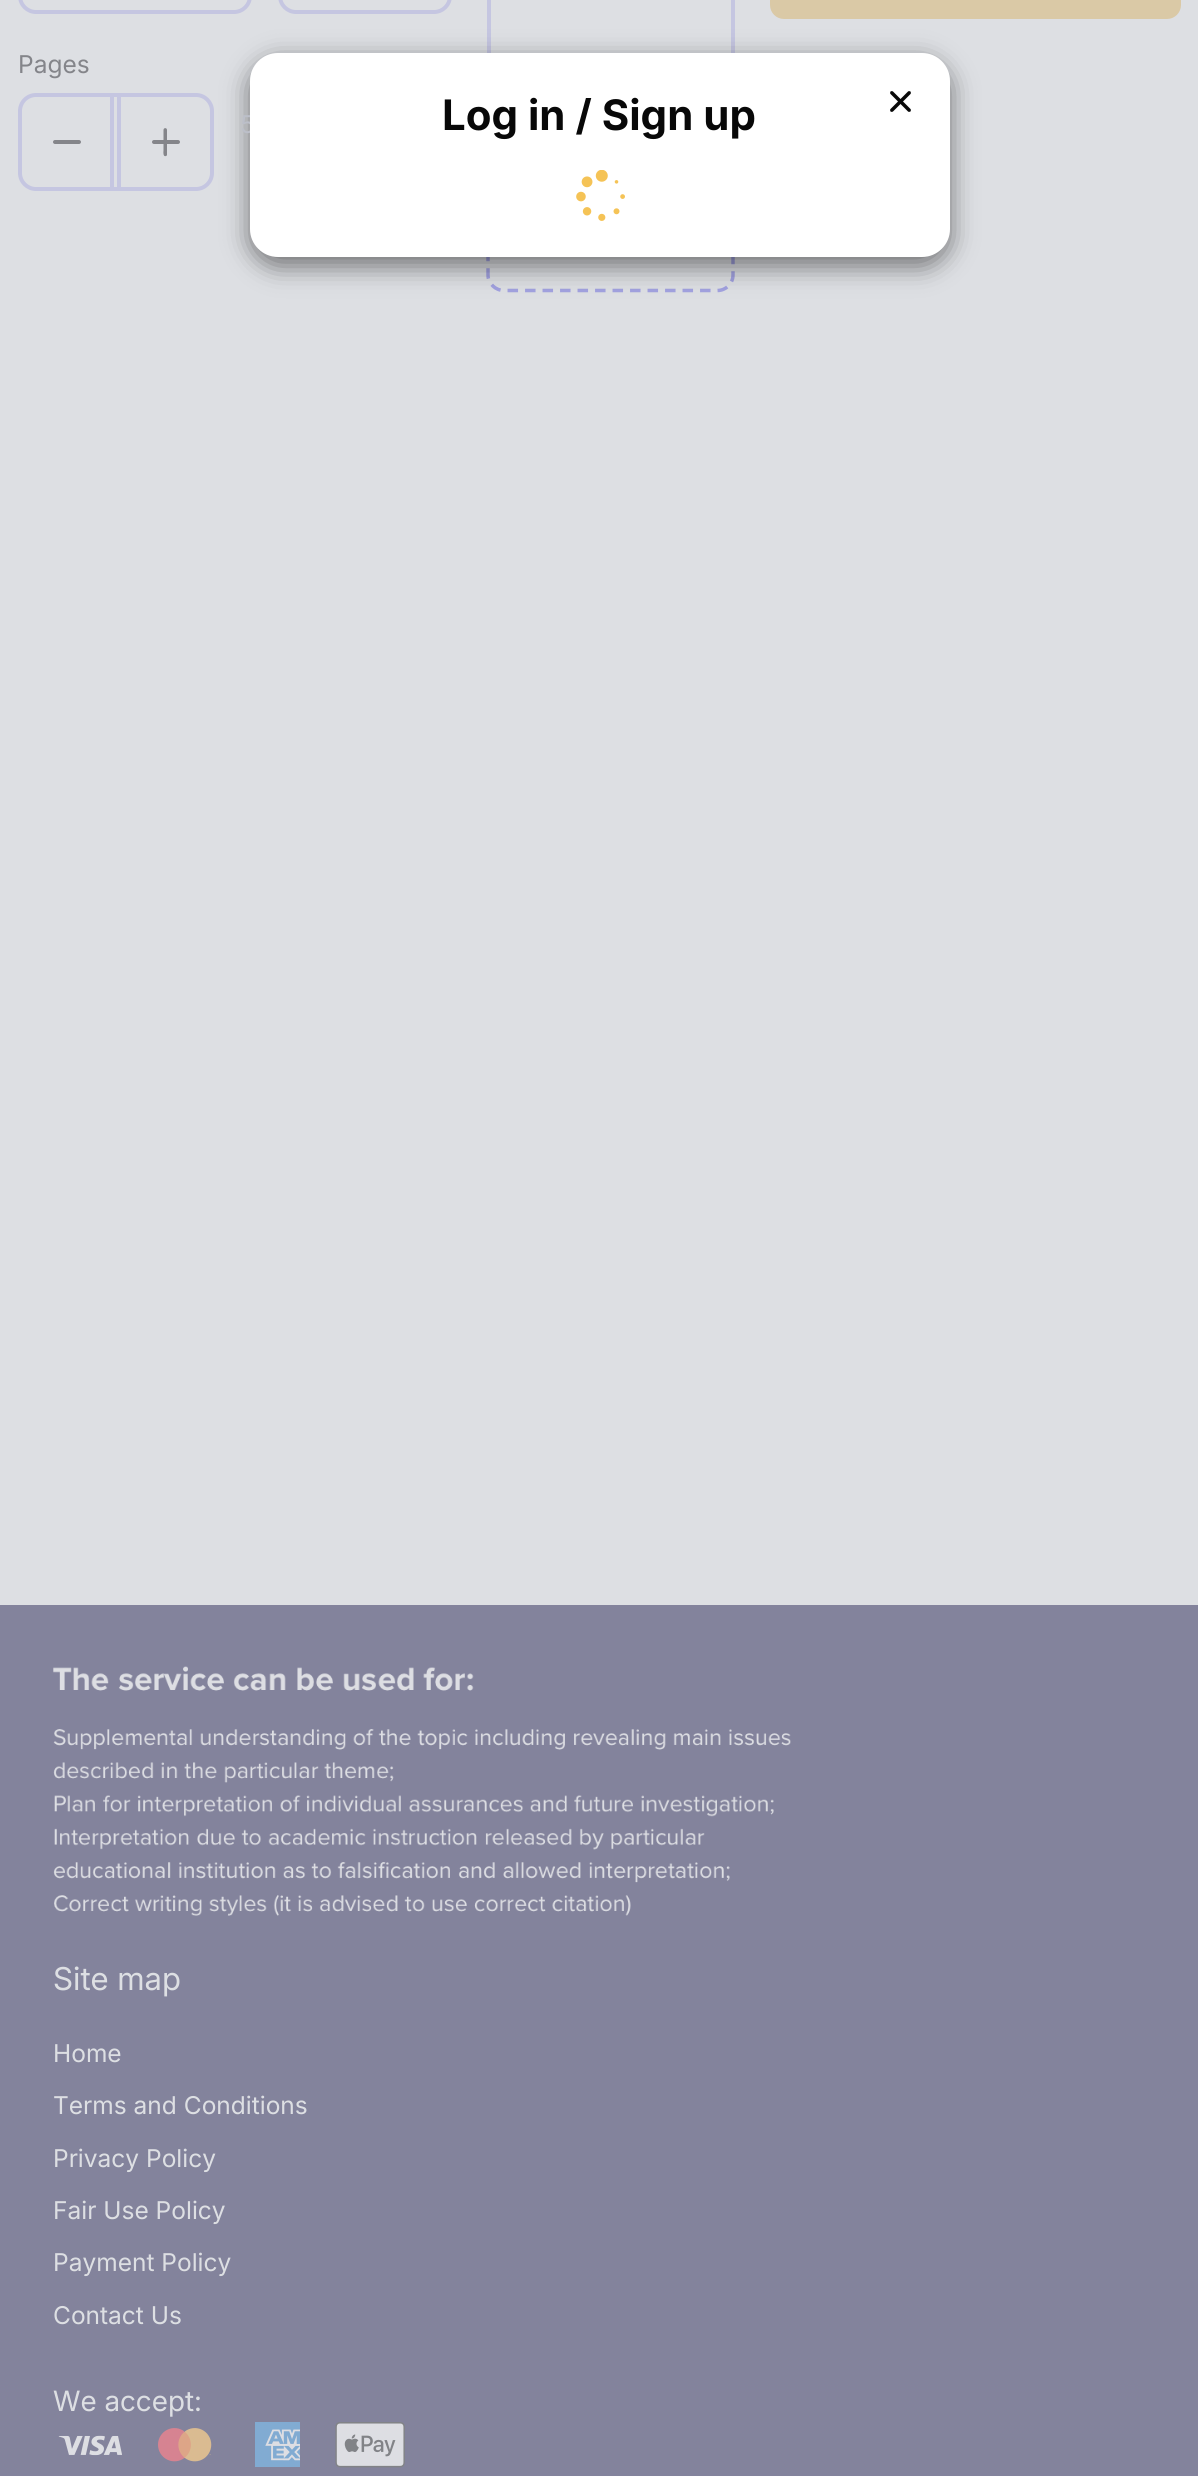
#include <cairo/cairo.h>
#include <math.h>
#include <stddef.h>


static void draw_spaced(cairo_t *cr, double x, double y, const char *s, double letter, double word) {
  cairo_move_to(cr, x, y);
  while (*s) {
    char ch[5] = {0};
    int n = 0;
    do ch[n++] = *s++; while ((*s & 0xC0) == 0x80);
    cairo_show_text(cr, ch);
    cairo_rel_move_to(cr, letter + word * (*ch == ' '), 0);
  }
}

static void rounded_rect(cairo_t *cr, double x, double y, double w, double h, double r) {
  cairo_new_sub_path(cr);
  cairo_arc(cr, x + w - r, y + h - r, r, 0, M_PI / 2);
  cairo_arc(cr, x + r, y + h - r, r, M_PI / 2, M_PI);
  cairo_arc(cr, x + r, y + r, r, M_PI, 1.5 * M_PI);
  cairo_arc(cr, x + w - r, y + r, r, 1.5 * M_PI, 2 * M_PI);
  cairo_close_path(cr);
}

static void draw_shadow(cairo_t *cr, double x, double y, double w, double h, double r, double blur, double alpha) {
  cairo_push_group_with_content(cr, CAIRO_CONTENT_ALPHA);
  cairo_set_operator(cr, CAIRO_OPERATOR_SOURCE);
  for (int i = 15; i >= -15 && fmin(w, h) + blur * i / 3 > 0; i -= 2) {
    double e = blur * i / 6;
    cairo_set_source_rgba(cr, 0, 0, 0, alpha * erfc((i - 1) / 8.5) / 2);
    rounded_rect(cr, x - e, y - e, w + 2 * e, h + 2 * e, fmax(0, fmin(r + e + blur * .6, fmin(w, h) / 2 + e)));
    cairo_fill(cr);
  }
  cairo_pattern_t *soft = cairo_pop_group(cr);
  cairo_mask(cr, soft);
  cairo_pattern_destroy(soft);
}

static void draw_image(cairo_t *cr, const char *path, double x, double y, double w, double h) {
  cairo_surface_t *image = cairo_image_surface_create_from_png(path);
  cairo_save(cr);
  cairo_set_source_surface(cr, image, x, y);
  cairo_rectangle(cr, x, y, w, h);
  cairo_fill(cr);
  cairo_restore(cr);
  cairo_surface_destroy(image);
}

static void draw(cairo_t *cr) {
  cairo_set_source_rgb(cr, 221 / 255.0, 223 / 255.0, 227 / 255.0);
  cairo_paint(cr);
  rounded_rect(cr, 20, -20, 230, 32, 16);
  cairo_set_source_rgb(cr, 197 / 255.0, 198 / 255.0, 225 / 255.0);
  cairo_set_line_width(cr, 4);
  cairo_stroke(cr);
  rounded_rect(cr, 280, -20, 170, 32, 16);
  cairo_stroke(cr);
  rounded_rect(cr, 20, 95, 192, 94, 16);
  cairo_stroke(cr);
  cairo_rectangle(cr, 110, 96, 4, 91);
  cairo_fill(cr);
  cairo_set_source_rgb(cr, 132 / 255.0, 133 / 255.0, 138 / 255.0);
  rounded_rect(cr, 53, 140, 28, 4, 2);
  cairo_fill(cr);
  cairo_set_source_rgb(cr, 197 / 255.0, 198 / 255.0, 225 / 255.0);
  cairo_rectangle(cr, 117, 96, 4, 91);
  cairo_fill(cr);
  cairo_set_source_rgb(cr, 132 / 255.0, 133 / 255.0, 138 / 255.0);
  rounded_rect(cr, 152, 140, 28, 4, 2);
  cairo_fill(cr);
  cairo_new_path(cr);
  cairo_move_to(cr, 167, 130);
  cairo_line_to(cr, 167, 155);
  cairo_curve_to(cr, 166.5, 156.5, 164.5, 156.5, 164, 155.5);
  cairo_curve_to(cr, 163, 154, 163.5, 150.5, 163.5, 150.5);
  cairo_line_to(cr, 163.5, 130);
  cairo_curve_to(cr, 163.5, 127.5, 167, 127.5, 167, 130);
  cairo_close_path(cr);
  cairo_fill(cr);
  cairo_rectangle(cr, 489, -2, 244, 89);
  cairo_set_source_rgb(cr, 197 / 255.0, 198 / 255.0, 225 / 255.0);
  cairo_stroke(cr);
  cairo_new_path(cr);
  cairo_move_to(cr, 504, 126);
  cairo_line_to(cr, 717.5, 126);
  cairo_curve_to(cr, 726, 126, 733, 133, 733, 142);
  cairo_line_to(cr, 733, 275);
  cairo_curve_to(cr, 733, 283.5, 726, 290.5, 717.5, 290.5);
  cairo_line_to(cr, 504, 290.5);
  cairo_curve_to(cr, 495.5, 290.5, 488, 283.5, 488, 275);
  cairo_line_to(cr, 488, 142);
  cairo_curve_to(cr, 488, 133, 495.5, 126, 504, 126);
  cairo_close_path(cr);
  cairo_set_source_rgb(cr, 161 / 255.0, 161 / 255.0, 223 / 255.0);
  cairo_set_line_width(cr, 3.5);
  cairo_set_dash(cr, (double[]){10.5, 7}, 2, 0);
  cairo_stroke(cr);
  cairo_set_source_rgb(cr, 218 / 255.0, 201 / 255.0, 166 / 255.0);
  rounded_rect(cr, 770, -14, 411, 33, 14);
  cairo_fill(cr);
  cairo_set_source_rgb(cr, 0, 0, 0);
  draw_shadow(cr, 250, 61, 700, 205, 28, 13, 0.5);
  cairo_set_source_rgb(cr, 131 / 255.0, 131 / 255.0, 156 / 255.0);
  cairo_rectangle(cr, 0, 1605, 1198, 871);
  cairo_fill(cr);
  draw_image(cr, "images/2.png", 53, 1666, 738, 250);
  draw_image(cr, "images/3.png", 58, 2435, 64, 21);
  draw_image(cr, "images/4.png", 158, 2428, 54, 34);
  draw_image(cr, "images/5.png", 255, 2422, 45, 45);
  draw_image(cr, "images/6.png", 335, 2422, 70, 46);
  cairo_select_font_face(cr, "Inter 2", CAIRO_FONT_SLANT_NORMAL, CAIRO_FONT_WEIGHT_NORMAL);
  cairo_set_font_size(cr, 24.5);
  cairo_set_source_rgb(cr, 132 / 255.0, 133 / 255.0, 138 / 255.0);
  cairo_move_to(cr, 18, 73);
  cairo_show_text(cr, "Pages");
  cairo_set_source_rgb(cr, 188 / 255.0, 191 / 255.0, 201 / 255.0);
  draw_spaced(cr, 240, 133, "5", 0, -1);
  cairo_set_source_rgb(cr, 1, 1, 1);
  rounded_rect(cr, 250, 53, 700, 204, 28);
  cairo_fill(cr);
  cairo_select_font_face(cr, "Inter", CAIRO_FONT_SLANT_NORMAL, CAIRO_FONT_WEIGHT_BOLD);
  cairo_set_font_size(cr, 42);
  cairo_set_source_rgb(cr, 8 / 255.0, 8 / 255.0, 8 / 255.0);
  cairo_move_to(cr, 442, 130);
  cairo_show_text(cr, "Log in / Sign up");
  cairo_new_path(cr);
  cairo_move_to(cr, 890.5, 91.5);
  cairo_curve_to(cr, 891, 91, 892.5, 91, 893, 91.5);
  cairo_line_to(cr, 910.5, 109);
  cairo_curve_to(cr, 911, 109.5, 911, 110.5, 910.5, 111.5);
  cairo_curve_to(cr, 909.5, 112, 908.5, 112, 908, 111.5);
  cairo_line_to(cr, 890.5, 94);
  cairo_curve_to(cr, 890, 93.5, 890, 92.5, 890.5, 91.5);
  cairo_close_path(cr);
  cairo_fill(cr);
  cairo_new_path(cr);
  cairo_move_to(cr, 910.5, 91.5);
  cairo_curve_to(cr, 911, 92.5, 911, 93.5, 910.5, 94);
  cairo_line_to(cr, 893, 111.5);
  cairo_curve_to(cr, 892.5, 112, 891, 112, 890.5, 111.5);
  cairo_curve_to(cr, 890, 110.5, 890, 109.5, 890.5, 109);
  cairo_line_to(cr, 908, 91.5);
  cairo_curve_to(cr, 908.5, 91, 909.5, 91, 910.5, 91.5);
  cairo_close_path(cr);
  cairo_fill(cr);
  draw_image(cr, "images/1.png", 576, 170, 49, 51);
  cairo_select_font_face(cr, "Inter", CAIRO_FONT_SLANT_NORMAL, CAIRO_FONT_WEIGHT_NORMAL);
  cairo_set_font_size(cr, 31.5);
  cairo_set_source_rgb(cr, 221 / 255.0, 223 / 255.0, 227 / 255.0);
  cairo_move_to(cr, 53, 1990);
  cairo_show_text(cr, "Site map");
  cairo_select_font_face(cr, "Inter 2", CAIRO_FONT_SLANT_NORMAL, CAIRO_FONT_WEIGHT_NORMAL);
  cairo_set_font_size(cr, 24.5);
  cairo_move_to(cr, 53, 2062);
  cairo_show_text(cr, "Home");
  cairo_move_to(cr, 53, 2114);
  cairo_show_text(cr, "Terms and Conditions");
  cairo_move_to(cr, 53, 2167);
  cairo_show_text(cr, "Privacy Policy");
  cairo_move_to(cr, 53, 2219);
  cairo_show_text(cr, "Fair Use Policy");
  cairo_move_to(cr, 53, 2271);
  cairo_show_text(cr, "Payment Policy");
  cairo_move_to(cr, 53, 2324);
  cairo_show_text(cr, "Contact Us");
  cairo_select_font_face(cr, "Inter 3", CAIRO_FONT_SLANT_NORMAL, CAIRO_FONT_WEIGHT_NORMAL);
  cairo_set_font_size(cr, 28);
  cairo_move_to(cr, 53, 2411);
  cairo_show_text(cr, "We accept:");
}

int main(void) {
  cairo_surface_t *surface = cairo_image_surface_create(CAIRO_FORMAT_RGB24, 1198, 2476);
  cairo_t *cr = cairo_create(surface);
  cairo_font_options_t *options = cairo_font_options_create();
  cairo_font_options_set_hint_metrics(options, CAIRO_HINT_METRICS_OFF);
  cairo_font_options_set_hint_style(options, CAIRO_HINT_STYLE_NONE);
  cairo_set_font_options(cr, options);
  cairo_set_miter_limit(cr, 4);
  draw(cr);
  cairo_surface_write_to_png(surface, "out.png");
  cairo_font_options_destroy(options);
  cairo_destroy(cr);
  cairo_surface_destroy(surface);
  return 0;
}
